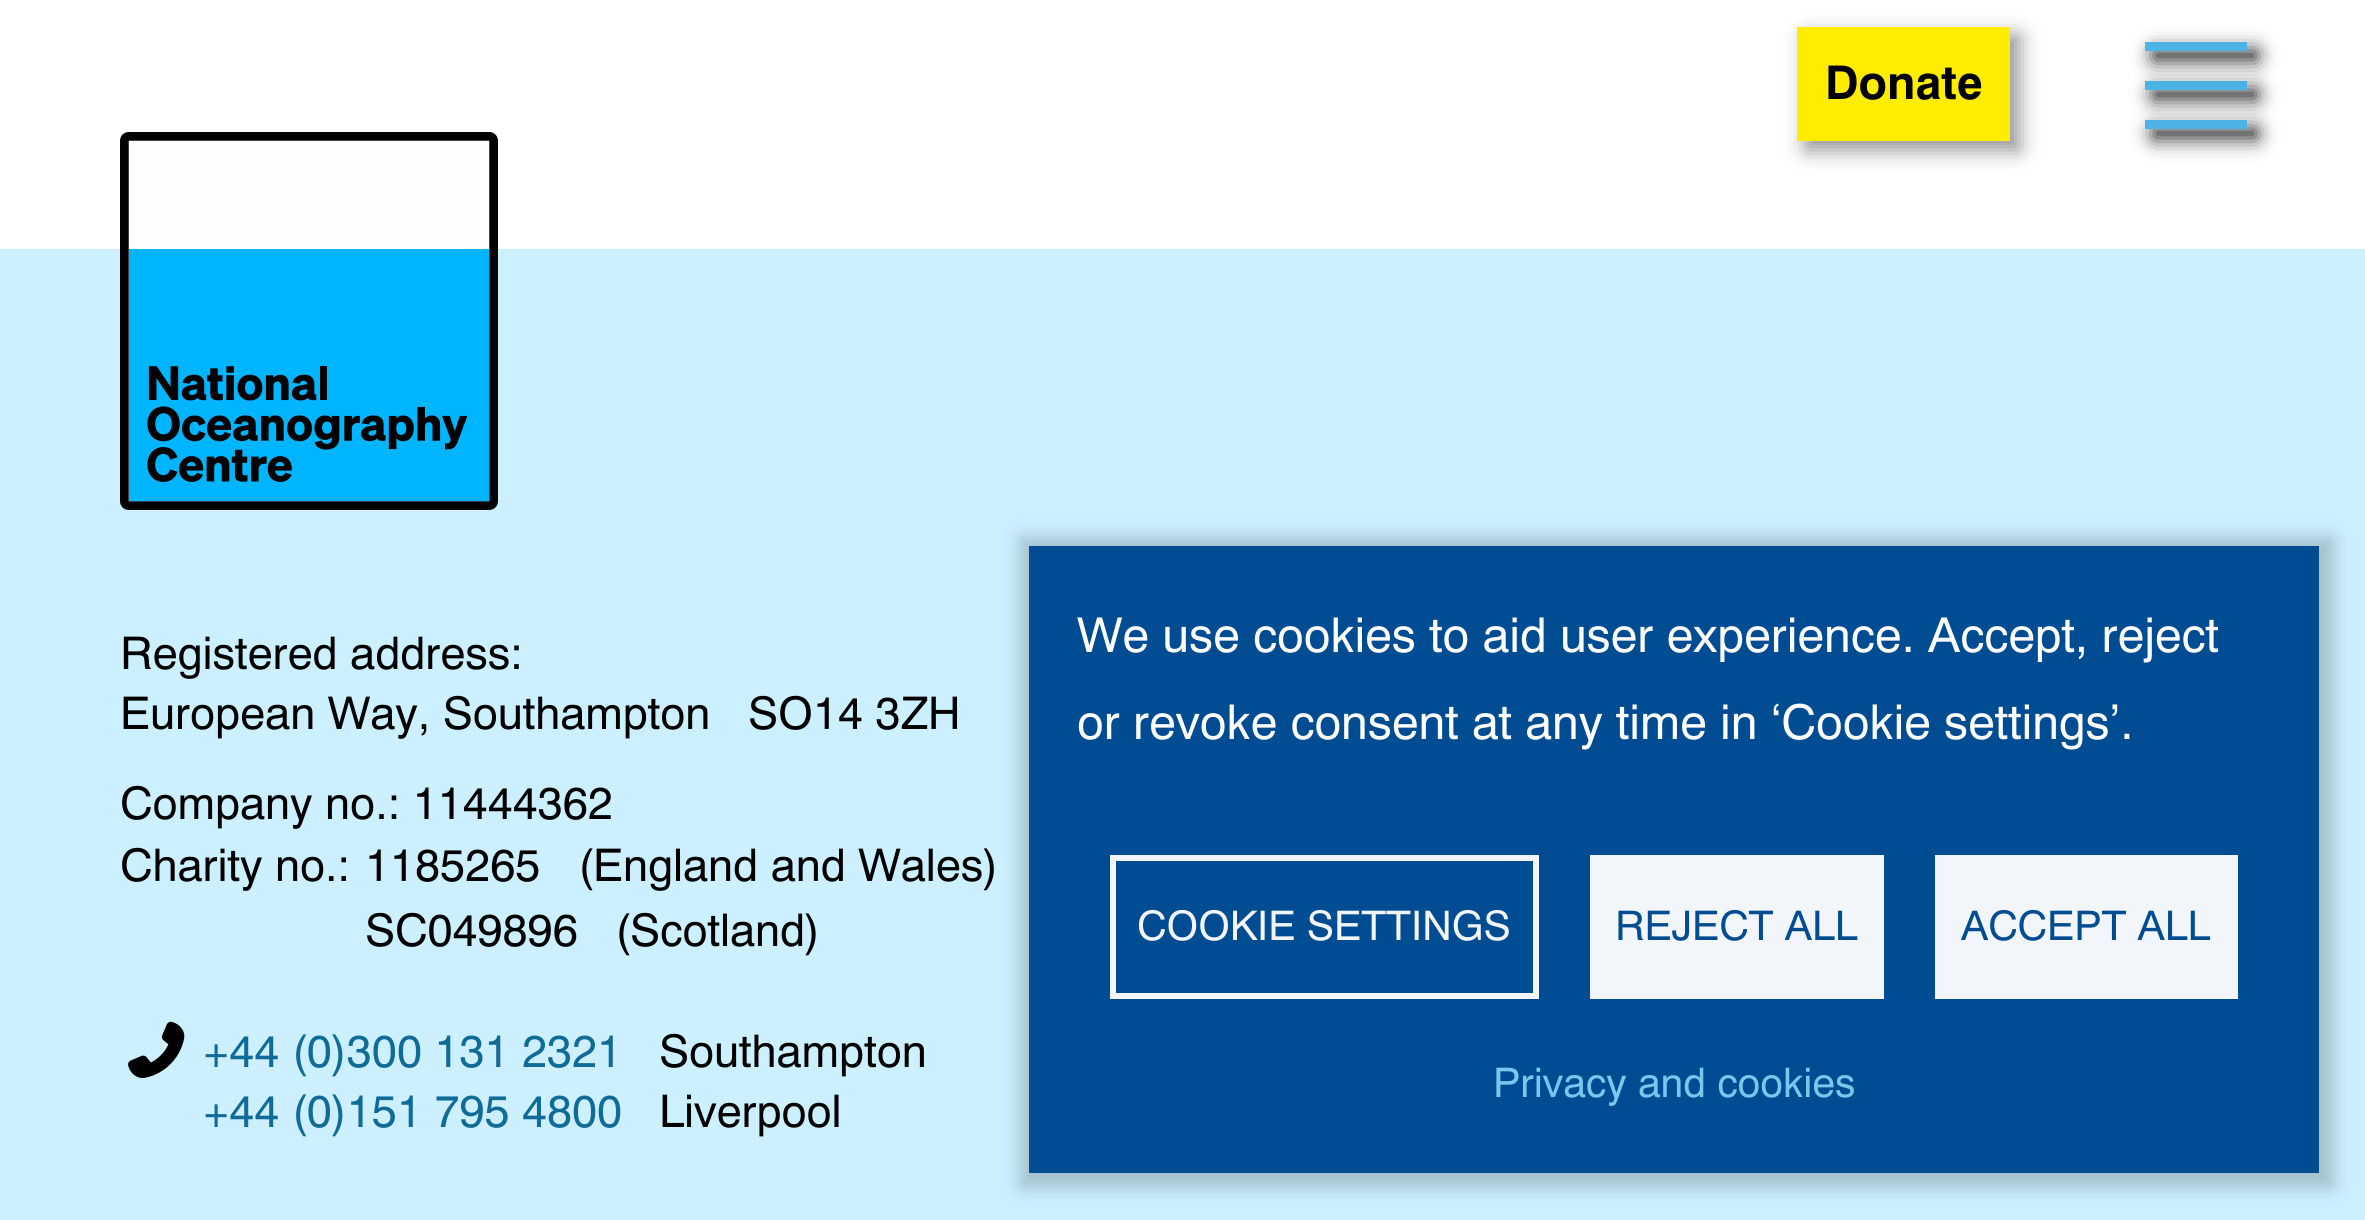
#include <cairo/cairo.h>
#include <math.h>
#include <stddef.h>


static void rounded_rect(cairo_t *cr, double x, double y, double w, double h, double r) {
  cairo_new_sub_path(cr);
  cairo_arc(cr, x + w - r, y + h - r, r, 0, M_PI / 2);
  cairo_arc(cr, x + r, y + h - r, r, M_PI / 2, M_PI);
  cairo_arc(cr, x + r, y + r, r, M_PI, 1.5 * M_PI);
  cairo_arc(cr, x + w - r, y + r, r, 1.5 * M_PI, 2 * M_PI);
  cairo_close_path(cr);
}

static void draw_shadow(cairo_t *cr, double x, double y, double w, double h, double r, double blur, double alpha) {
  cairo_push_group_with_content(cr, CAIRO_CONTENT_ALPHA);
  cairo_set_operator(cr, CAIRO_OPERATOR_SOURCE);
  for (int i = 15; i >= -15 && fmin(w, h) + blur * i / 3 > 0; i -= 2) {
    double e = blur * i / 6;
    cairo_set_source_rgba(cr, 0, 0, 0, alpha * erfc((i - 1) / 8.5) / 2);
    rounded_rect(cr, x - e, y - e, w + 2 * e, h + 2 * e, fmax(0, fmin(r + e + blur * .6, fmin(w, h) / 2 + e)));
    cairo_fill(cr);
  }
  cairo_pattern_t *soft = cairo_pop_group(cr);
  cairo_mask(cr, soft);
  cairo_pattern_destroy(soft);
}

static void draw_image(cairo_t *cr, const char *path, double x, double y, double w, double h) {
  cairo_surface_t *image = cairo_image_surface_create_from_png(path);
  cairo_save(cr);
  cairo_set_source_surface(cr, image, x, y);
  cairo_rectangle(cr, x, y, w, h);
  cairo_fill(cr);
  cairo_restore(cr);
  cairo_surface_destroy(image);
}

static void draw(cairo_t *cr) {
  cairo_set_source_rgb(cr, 1, 1, 1);
  cairo_paint(cr);
  cairo_set_source_rgb(cr, 34 / 255.0, 34 / 255.0, 34 / 255.0);
  draw_shadow(cr, 1806, 36, 213, 114, 0, 10.5, 0.5);
  cairo_set_source_rgb(cr, 1, 237 / 255.0, 0);
  cairo_rectangle(cr, 1797, 27, 213, 114);
  cairo_fill(cr);
  cairo_set_source_rgb(cr, 34 / 255.0, 34 / 255.0, 34 / 255.0);
  draw_shadow(cr, 2154, 90, 102, 9, 0, 10.5, 1);
  cairo_set_source_rgb(cr, 77 / 255.0, 179 / 255.0, 230 / 255.0);
  cairo_rectangle(cr, 2145, 81, 102, 9);
  cairo_fill(cr);
  cairo_set_source_rgb(cr, 34 / 255.0, 34 / 255.0, 34 / 255.0);
  draw_shadow(cr, 2154, 51, 102, 9, 0, 10.5, 1);
  cairo_set_source_rgb(cr, 77 / 255.0, 179 / 255.0, 230 / 255.0);
  cairo_rectangle(cr, 2145, 42, 102, 9);
  cairo_fill(cr);
  cairo_set_source_rgb(cr, 34 / 255.0, 34 / 255.0, 34 / 255.0);
  draw_shadow(cr, 2154, 129, 102, 9, 0, 10.5, 1);
  cairo_set_source_rgb(cr, 77 / 255.0, 179 / 255.0, 230 / 255.0);
  cairo_rectangle(cr, 2145, 120, 102, 9);
  cairo_fill(cr);
  cairo_set_source_rgb(cr, 204 / 255.0, 240 / 255.0, 1);
  cairo_rectangle(cr, 0, 249, 2365, 971);
  cairo_fill(cr);
  draw_image(cr, "images/1.png", 120, 132, 378, 378);
  draw_image(cr, "images/2.png", 128, 1021, 57, 57);
  cairo_set_source_rgb(cr, 0, 0, 0);
  draw_shadow(cr, 1020, 537, 1314, 651, 0, 9, 0.2);
  cairo_set_source_rgb(cr, 0, 76 / 255.0, 147 / 255.0);
  cairo_rectangle(cr, 1029, 546, 1290, 627);
  cairo_fill(cr);
  cairo_rectangle(cr, 1113, 858, 423, 138);
  cairo_set_source_rgb(cr, 242 / 255.0, 246 / 255.0, 250 / 255.0);
  cairo_set_line_width(cr, 6);
  cairo_stroke(cr);
  cairo_rectangle(cr, 1590, 855, 294, 144);
  cairo_fill(cr);
  cairo_rectangle(cr, 1935, 855, 303, 144);
  cairo_fill(cr);
  cairo_select_font_face(cr, "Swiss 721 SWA", CAIRO_FONT_SLANT_NORMAL, CAIRO_FONT_WEIGHT_BOLD);
  cairo_set_font_size(cr, 46.5);
  cairo_set_source_rgb(cr, 1 / 255.0, 1 / 255.0, 1 / 255.0);
  cairo_move_to(cr, 1825, 99);
  cairo_show_text(cr, "Donate");
  cairo_select_font_face(cr, "Swiss 721 SWA", CAIRO_FONT_SLANT_NORMAL, CAIRO_FONT_WEIGHT_NORMAL);
  cairo_set_font_size(cr, 45);
  cairo_move_to(cr, 120, 669);
  cairo_show_text(cr, "Registered address:");
  cairo_move_to(cr, 120, 729);
  cairo_show_text(cr, "European Way, Southampton");
  cairo_move_to(cr, 748, 729);
  cairo_show_text(cr, "SO14 3ZH");
  cairo_move_to(cr, 120, 819);
  cairo_show_text(cr, "Company no.: 11444362");
  cairo_move_to(cr, 120, 881);
  cairo_show_text(cr, "Charity no.:");
  cairo_move_to(cr, 365, 881);
  cairo_show_text(cr, "1185265");
  cairo_move_to(cr, 578, 881);
  cairo_show_text(cr, "(England and Wales)");
  cairo_move_to(cr, 365, 946);
  cairo_show_text(cr, "SC049896");
  cairo_move_to(cr, 615, 946);
  cairo_show_text(cr, "(Scotland)");
  cairo_set_source_rgb(cr, 16 / 255.0, 107 / 255.0, 153 / 255.0);
  cairo_move_to(cr, 203, 1067);
  cairo_show_text(cr, "+44 (0)300 131 2321");
  cairo_set_source_rgb(cr, 1 / 255.0, 1 / 255.0, 1 / 255.0);
  cairo_move_to(cr, 659, 1067);
  cairo_show_text(cr, "Southampton");
  cairo_set_source_rgb(cr, 16 / 255.0, 107 / 255.0, 153 / 255.0);
  cairo_move_to(cr, 203, 1127);
  cairo_show_text(cr, "+44 (0)151 795 4800");
  cairo_set_source_rgb(cr, 1 / 255.0, 1 / 255.0, 1 / 255.0);
  cairo_move_to(cr, 659, 1127);
  cairo_show_text(cr, "Liverpool");
  cairo_set_font_size(cr, 48);
  cairo_set_source_rgb(cr, 1, 1, 1);
  cairo_move_to(cr, 1077, 652);
  cairo_show_text(cr, "We use cookies to aid user experience. Accept, reject");
  cairo_move_to(cr, 1077, 739);
  cairo_show_text(cr, "or revoke consent at any time in ‘Cookie settings’.");
  cairo_set_font_size(cr, 40.75);
  cairo_set_source_rgb(cr, 242 / 255.0, 246 / 255.0, 250 / 255.0);
  cairo_move_to(cr, 1137, 940);
  cairo_show_text(cr, "COOKIE SETTINGS");
  cairo_set_source_rgb(cr, 0, 76 / 255.0, 147 / 255.0);
  cairo_move_to(cr, 1615, 940);
  cairo_show_text(cr, "REJECT ALL");
  cairo_move_to(cr, 1961, 940);
  cairo_show_text(cr, "ACCEPT ALL");
  cairo_set_source_rgb(cr, 122 / 255.0, 198 / 255.0, 236 / 255.0);
  cairo_move_to(cr, 1493, 1097);
  cairo_show_text(cr, "Privacy and cookies");
}

int main(void) {
  cairo_surface_t *surface = cairo_image_surface_create(CAIRO_FORMAT_RGB24, 2365, 1220);
  cairo_t *cr = cairo_create(surface);
  cairo_font_options_t *options = cairo_font_options_create();
  cairo_font_options_set_hint_metrics(options, CAIRO_HINT_METRICS_OFF);
  cairo_font_options_set_hint_style(options, CAIRO_HINT_STYLE_NONE);
  cairo_set_font_options(cr, options);
  cairo_set_miter_limit(cr, 4);
  draw(cr);
  cairo_surface_write_to_png(surface, "out.png");
  cairo_font_options_destroy(options);
  cairo_destroy(cr);
  cairo_surface_destroy(surface);
  return 0;
}
